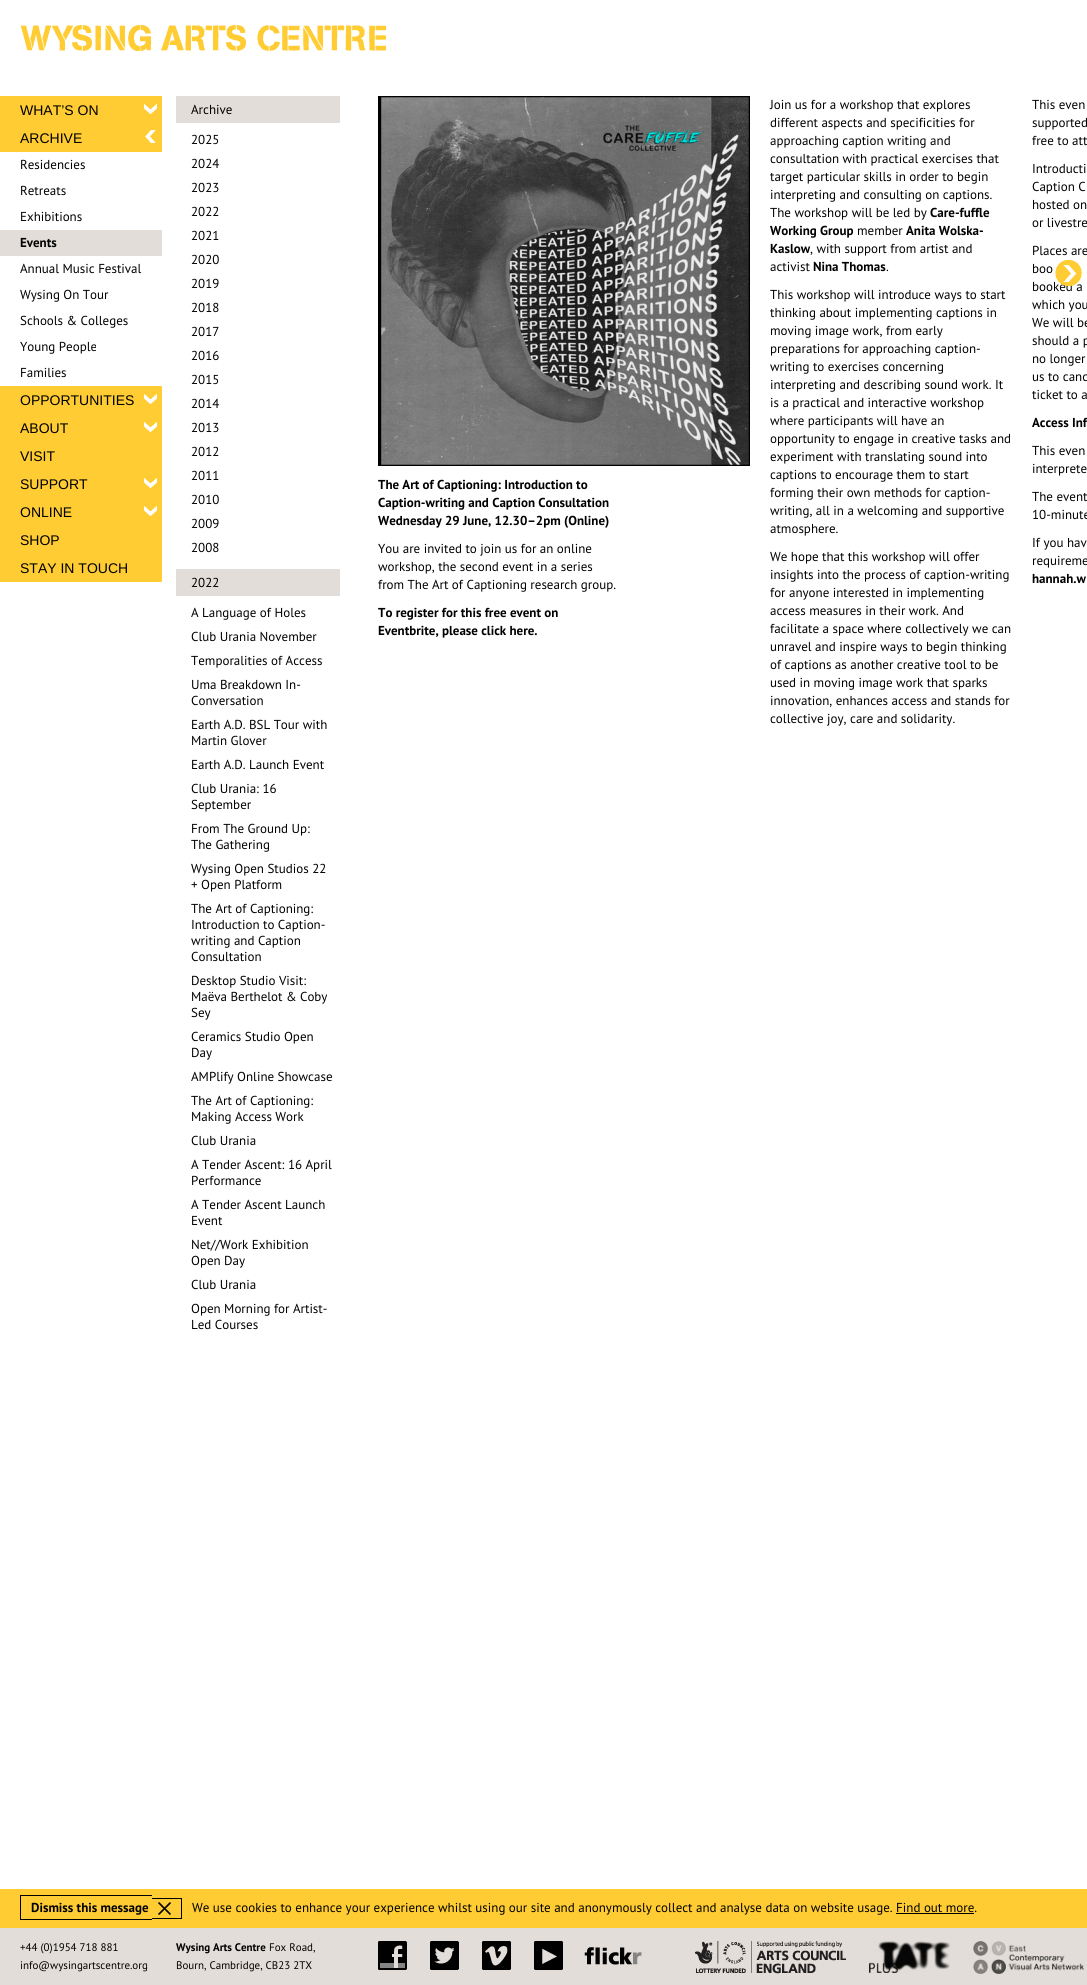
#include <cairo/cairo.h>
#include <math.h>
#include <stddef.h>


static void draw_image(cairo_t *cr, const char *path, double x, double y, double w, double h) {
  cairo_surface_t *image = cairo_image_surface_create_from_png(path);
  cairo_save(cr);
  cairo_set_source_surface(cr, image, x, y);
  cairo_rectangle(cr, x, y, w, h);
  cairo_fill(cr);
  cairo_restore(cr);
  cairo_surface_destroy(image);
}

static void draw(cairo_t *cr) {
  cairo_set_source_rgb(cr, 1, 1, 1);
  cairo_paint(cr);
  draw_image(cr, "images/1.png", 20, 25, 366, 26);
  cairo_set_source_rgb(cr, 1, 204 / 255.0, 51 / 255.0);
  cairo_rectangle(cr, 0, 96, 162, 56);
  cairo_fill(cr);
  draw_image(cr, "images/2.png", 144, 103, 13, 11);
  draw_image(cr, "images/3.png", 145, 130, 11, 13);
  cairo_set_source_rgb(cr, 226 / 255.0, 221 / 255.0, 216 / 255.0);
  cairo_rectangle(cr, 0, 230, 162, 26);
  cairo_fill(cr);
  cairo_set_source_rgb(cr, 1, 204 / 255.0, 51 / 255.0);
  cairo_rectangle(cr, 0, 386, 162, 196);
  cairo_fill(cr);
  draw_image(cr, "images/2.png", 144, 393, 13, 11);
  draw_image(cr, "images/2.png", 144, 421, 13, 11);
  draw_image(cr, "images/2.png", 144, 477, 13, 11);
  draw_image(cr, "images/2.png", 144, 505, 13, 11);
  cairo_set_source_rgb(cr, 226 / 255.0, 221 / 255.0, 216 / 255.0);
  cairo_rectangle(cr, 176, 96, 164, 27);
  cairo_fill(cr);
  cairo_rectangle(cr, 176, 569, 164, 27);
  cairo_fill(cr);
  draw_image(cr, "images/4.png", 378, 96, 372, 370);
  cairo_rectangle(cr, 0, 1928, 1087, 57);
  cairo_fill(cr);
  cairo_set_source_rgb(cr, 1, 204 / 255.0, 51 / 255.0);
  cairo_rectangle(cr, 0, 1889, 1087, 39);
  cairo_fill(cr);
  cairo_set_source_rgb(cr, 0, 0, 0);
  cairo_rectangle(cr, 20, 1895, 132, 1);
  cairo_fill(cr);
  cairo_rectangle(cr, 20, 1919, 132, 1);
  cairo_fill(cr);
  cairo_rectangle(cr, 20, 1895, 1, 25);
  cairo_fill(cr);
  cairo_rectangle(cr, 152, 1898, 30, 1);
  cairo_fill(cr);
  cairo_rectangle(cr, 181, 1898, 1, 21);
  cairo_fill(cr);
  cairo_rectangle(cr, 152, 1918, 30, 1);
  cairo_fill(cr);
  draw_image(cr, "images/6.png", 158, 1902, 13, 13);
  cairo_rectangle(cr, 896, 1913, 78, 1);
  cairo_fill(cr);
  draw_image(cr, "images/7.png", 378, 1941, 29, 29);
  draw_image(cr, "images/8.png", 430, 1941, 29, 29);
  draw_image(cr, "images/9.png", 482, 1941, 29, 29);
  draw_image(cr, "images/10.png", 534, 1941, 29, 29);
  draw_image(cr, "images/11.png", 584, 1947, 58, 18);
  draw_image(cr, "images/12.png", 695, 1941, 151, 33);
  draw_image(cr, "images/13.png", 869, 1941, 81, 32);
  draw_image(cr, "images/14.png", 973, 1941, 111, 33);
  cairo_select_font_face(cr, "Liberation Sans", CAIRO_FONT_SLANT_NORMAL, CAIRO_FONT_WEIGHT_NORMAL);
  cairo_set_font_size(cr, 14);
  cairo_move_to(cr, 20, 115);
  cairo_show_text(cr, "WHAT’S ON");
  cairo_move_to(cr, 20, 143);
  cairo_show_text(cr, "ARCHIVE");
  cairo_select_font_face(cr, "PT Sans", CAIRO_FONT_SLANT_NORMAL, CAIRO_FONT_WEIGHT_NORMAL);
  cairo_set_font_size(cr, 13);
  cairo_move_to(cr, 20, 169);
  cairo_show_text(cr, "Residencies");
  cairo_move_to(cr, 20, 195);
  cairo_show_text(cr, "Retreats");
  cairo_move_to(cr, 20, 221);
  cairo_show_text(cr, "Exhibitions");
  cairo_select_font_face(cr, "PT Sans", CAIRO_FONT_SLANT_NORMAL, CAIRO_FONT_WEIGHT_BOLD);
  cairo_move_to(cr, 20, 247);
  cairo_show_text(cr, "Events");
  cairo_select_font_face(cr, "PT Sans", CAIRO_FONT_SLANT_NORMAL, CAIRO_FONT_WEIGHT_NORMAL);
  cairo_move_to(cr, 20, 273);
  cairo_show_text(cr, "Annual Music Festival");
  cairo_move_to(cr, 20, 299);
  cairo_show_text(cr, "Wysing On Tour");
  cairo_move_to(cr, 20, 325);
  cairo_show_text(cr, "Schools & Colleges");
  cairo_move_to(cr, 20, 351);
  cairo_show_text(cr, "Young People");
  cairo_move_to(cr, 20, 377);
  cairo_show_text(cr, "Families");
  cairo_select_font_face(cr, "Liberation Sans", CAIRO_FONT_SLANT_NORMAL, CAIRO_FONT_WEIGHT_NORMAL);
  cairo_set_font_size(cr, 14);
  cairo_move_to(cr, 20, 405);
  cairo_show_text(cr, "OPPORTUNITIES");
  cairo_move_to(cr, 20, 433);
  cairo_show_text(cr, "ABOUT");
  cairo_move_to(cr, 20, 461);
  cairo_show_text(cr, "VISIT");
  cairo_move_to(cr, 20, 489);
  cairo_show_text(cr, "SUPPORT");
  cairo_move_to(cr, 20, 517);
  cairo_show_text(cr, "ONLINE");
  cairo_move_to(cr, 20, 545);
  cairo_show_text(cr, "SHOP");
  cairo_move_to(cr, 20, 573);
  cairo_show_text(cr, "STAY IN TOUCH");
  cairo_select_font_face(cr, "PT Sans", CAIRO_FONT_SLANT_NORMAL, CAIRO_FONT_WEIGHT_NORMAL);
  cairo_set_font_size(cr, 13);
  cairo_move_to(cr, 191, 114);
  cairo_show_text(cr, "Archive");
  cairo_move_to(cr, 191, 144);
  cairo_show_text(cr, "2025");
  cairo_move_to(cr, 191, 168);
  cairo_show_text(cr, "2024");
  cairo_move_to(cr, 191, 192);
  cairo_show_text(cr, "2023");
  cairo_move_to(cr, 191, 216);
  cairo_show_text(cr, "2022");
  cairo_move_to(cr, 191, 240);
  cairo_show_text(cr, "2021");
  cairo_move_to(cr, 191, 264);
  cairo_show_text(cr, "2020");
  cairo_move_to(cr, 191, 288);
  cairo_show_text(cr, "2019");
  cairo_move_to(cr, 191, 312);
  cairo_show_text(cr, "2018");
  cairo_move_to(cr, 191, 336);
  cairo_show_text(cr, "2017");
  cairo_move_to(cr, 191, 360);
  cairo_show_text(cr, "2016");
  cairo_move_to(cr, 191, 384);
  cairo_show_text(cr, "2015");
  cairo_move_to(cr, 191, 408);
  cairo_show_text(cr, "2014");
  cairo_move_to(cr, 191, 432);
  cairo_show_text(cr, "2013");
  cairo_move_to(cr, 191, 456);
  cairo_show_text(cr, "2012");
  cairo_move_to(cr, 191, 480);
  cairo_show_text(cr, "2011");
  cairo_move_to(cr, 191, 504);
  cairo_show_text(cr, "2010");
  cairo_move_to(cr, 191, 528);
  cairo_show_text(cr, "2009");
  cairo_move_to(cr, 191, 552);
  cairo_show_text(cr, "2008");
  cairo_move_to(cr, 191, 587);
  cairo_show_text(cr, "2022");
  cairo_move_to(cr, 191, 617);
  cairo_show_text(cr, "A Language of Holes");
  cairo_move_to(cr, 191, 641);
  cairo_show_text(cr, "Club Urania November");
  cairo_move_to(cr, 191, 665);
  cairo_show_text(cr, "Temporalities of Access");
  cairo_move_to(cr, 191, 689);
  cairo_show_text(cr, "Uma Breakdown In-");
  cairo_move_to(cr, 191, 705);
  cairo_show_text(cr, "Conversation");
  cairo_move_to(cr, 191, 729);
  cairo_show_text(cr, "Earth A.D. BSL Tour with");
  cairo_move_to(cr, 191, 745);
  cairo_show_text(cr, "Martin Glover");
  cairo_move_to(cr, 191, 769);
  cairo_show_text(cr, "Earth A.D. Launch Event");
  cairo_move_to(cr, 191, 793);
  cairo_show_text(cr, "Club Urania: 16");
  cairo_move_to(cr, 191, 809);
  cairo_show_text(cr, "September");
  cairo_move_to(cr, 191, 833);
  cairo_show_text(cr, "From The Ground Up:");
  cairo_move_to(cr, 191, 849);
  cairo_show_text(cr, "The Gathering");
  cairo_move_to(cr, 191, 873);
  cairo_show_text(cr, "Wysing Open Studios 22");
  cairo_move_to(cr, 191, 889);
  cairo_show_text(cr, "+ Open Platform");
  cairo_move_to(cr, 191, 913);
  cairo_show_text(cr, "The Art of Captioning:");
  cairo_move_to(cr, 191, 929);
  cairo_show_text(cr, "Introduction to Caption-");
  cairo_move_to(cr, 191, 945);
  cairo_show_text(cr, "writing and Caption");
  cairo_move_to(cr, 191, 961);
  cairo_show_text(cr, "Consultation");
  cairo_move_to(cr, 191, 985);
  cairo_show_text(cr, "Desktop Studio Visit:");
  cairo_move_to(cr, 191, 1001);
  cairo_show_text(cr, "Maëva Berthelot & Coby");
  cairo_move_to(cr, 191, 1017);
  cairo_show_text(cr, "Sey");
  cairo_move_to(cr, 191, 1041);
  cairo_show_text(cr, "Ceramics Studio Open");
  cairo_move_to(cr, 191, 1057);
  cairo_show_text(cr, "Day");
  cairo_move_to(cr, 191, 1081);
  cairo_show_text(cr, "AMPlify Online Showcase");
  cairo_move_to(cr, 191, 1105);
  cairo_show_text(cr, "The Art of Captioning:");
  cairo_move_to(cr, 191, 1121);
  cairo_show_text(cr, "Making Access Work");
  cairo_move_to(cr, 191, 1145);
  cairo_show_text(cr, "Club Urania");
  cairo_move_to(cr, 191, 1169);
  cairo_show_text(cr, "A Tender Ascent: 16 April");
  cairo_move_to(cr, 191, 1185);
  cairo_show_text(cr, "Performance");
  cairo_move_to(cr, 191, 1209);
  cairo_show_text(cr, "A Tender Ascent Launch");
  cairo_move_to(cr, 191, 1225);
  cairo_show_text(cr, "Event");
  cairo_move_to(cr, 191, 1249);
  cairo_show_text(cr, "Net//Work Exhibition");
  cairo_move_to(cr, 191, 1265);
  cairo_show_text(cr, "Open Day");
  cairo_move_to(cr, 191, 1289);
  cairo_show_text(cr, "Club Urania");
  cairo_move_to(cr, 191, 1313);
  cairo_show_text(cr, "Open Morning for Artist-");
  cairo_move_to(cr, 191, 1329);
  cairo_show_text(cr, "Led Courses");
  cairo_select_font_face(cr, "PT Sans", CAIRO_FONT_SLANT_NORMAL, CAIRO_FONT_WEIGHT_BOLD);
  cairo_move_to(cr, 378, 489);
  cairo_show_text(cr, "The Art of Captioning: Introduction to");
  cairo_move_to(cr, 378, 507);
  cairo_show_text(cr, "Caption-writing and Caption Consultation");
  cairo_move_to(cr, 378, 525);
  cairo_show_text(cr, "Wednesday 29 June, 12.30–2pm (Online)");
  cairo_select_font_face(cr, "PT Sans", CAIRO_FONT_SLANT_NORMAL, CAIRO_FONT_WEIGHT_NORMAL);
  cairo_move_to(cr, 378, 553);
  cairo_show_text(cr, "You are invited to join us for an online");
  cairo_move_to(cr, 378, 571);
  cairo_show_text(cr, "workshop, the second event in a series");
  cairo_move_to(cr, 378, 589);
  cairo_show_text(cr, "from The Art of Captioning research group.");
  cairo_select_font_face(cr, "PT Sans", CAIRO_FONT_SLANT_NORMAL, CAIRO_FONT_WEIGHT_BOLD);
  cairo_move_to(cr, 378, 617);
  cairo_show_text(cr, "To register for this free event on");
  cairo_move_to(cr, 378, 635);
  cairo_show_text(cr, "Eventbrite, please click here.");
  cairo_select_font_face(cr, "PT Sans", CAIRO_FONT_SLANT_NORMAL, CAIRO_FONT_WEIGHT_NORMAL);
  cairo_move_to(cr, 770, 109);
  cairo_show_text(cr, "Join us for a workshop that explores");
  cairo_move_to(cr, 770, 127);
  cairo_show_text(cr, "different aspects and specificities for");
  cairo_move_to(cr, 770, 145);
  cairo_show_text(cr, "approaching caption writing and");
  cairo_move_to(cr, 770, 163);
  cairo_show_text(cr, "consultation with practical exercises that");
  cairo_move_to(cr, 770, 181);
  cairo_show_text(cr, "target particular skills in order to begin");
  cairo_move_to(cr, 770, 199);
  cairo_show_text(cr, "interpreting and consulting on captions.");
  cairo_move_to(cr, 770, 217);
  cairo_show_text(cr, "The workshop will be led by");
  cairo_select_font_face(cr, "PT Sans", CAIRO_FONT_SLANT_NORMAL, CAIRO_FONT_WEIGHT_BOLD);
  cairo_move_to(cr, 930, 217);
  cairo_show_text(cr, "Care-fuffle");
  cairo_move_to(cr, 770, 235);
  cairo_show_text(cr, "Working Group");
  cairo_select_font_face(cr, "PT Sans", CAIRO_FONT_SLANT_NORMAL, CAIRO_FONT_WEIGHT_NORMAL);
  cairo_move_to(cr, 857, 235);
  cairo_show_text(cr, "member");
  cairo_select_font_face(cr, "PT Sans", CAIRO_FONT_SLANT_NORMAL, CAIRO_FONT_WEIGHT_BOLD);
  cairo_move_to(cr, 906, 235);
  cairo_show_text(cr, "Anita Wolska-");
  cairo_move_to(cr, 770, 253);
  cairo_show_text(cr, "Kaslow");
  cairo_select_font_face(cr, "PT Sans", CAIRO_FONT_SLANT_NORMAL, CAIRO_FONT_WEIGHT_NORMAL);
  cairo_move_to(cr, 810, 253);
  cairo_show_text(cr, ", with support from artist and");
  cairo_move_to(cr, 770, 271);
  cairo_show_text(cr, "activist");
  cairo_select_font_face(cr, "PT Sans", CAIRO_FONT_SLANT_NORMAL, CAIRO_FONT_WEIGHT_BOLD);
  cairo_move_to(cr, 813, 271);
  cairo_show_text(cr, "Nina Thomas");
  cairo_select_font_face(cr, "PT Sans", CAIRO_FONT_SLANT_NORMAL, CAIRO_FONT_WEIGHT_NORMAL);
  cairo_move_to(cr, 886, 271);
  cairo_show_text(cr, ".");
  cairo_move_to(cr, 770, 299);
  cairo_show_text(cr, "This workshop will introduce ways to start");
  cairo_move_to(cr, 770, 317);
  cairo_show_text(cr, "thinking about implementing captions in");
  cairo_move_to(cr, 770, 335);
  cairo_show_text(cr, "moving image work, from early");
  cairo_move_to(cr, 770, 353);
  cairo_show_text(cr, "preparations for approaching caption-");
  cairo_move_to(cr, 770, 371);
  cairo_show_text(cr, "writing to exercises concerning");
  cairo_move_to(cr, 770, 389);
  cairo_show_text(cr, "interpreting and describing sound work. It");
  cairo_move_to(cr, 770, 407);
  cairo_show_text(cr, "is a practical and interactive workshop");
  cairo_move_to(cr, 770, 425);
  cairo_show_text(cr, "where participants will have an");
  cairo_move_to(cr, 770, 443);
  cairo_show_text(cr, "opportunity to engage in creative tasks and");
  cairo_move_to(cr, 770, 461);
  cairo_show_text(cr, "experiment with translating sound into");
  cairo_move_to(cr, 770, 479);
  cairo_show_text(cr, "captions to encourage them to start");
  cairo_move_to(cr, 770, 497);
  cairo_show_text(cr, "forming their own methods for caption-");
  cairo_move_to(cr, 770, 515);
  cairo_show_text(cr, "writing, all in a welcoming and supportive");
  cairo_move_to(cr, 770, 533);
  cairo_show_text(cr, "atmosphere.");
  cairo_move_to(cr, 770, 561);
  cairo_show_text(cr, "We hope that this workshop will offer");
  cairo_move_to(cr, 770, 579);
  cairo_show_text(cr, "insights into the process of caption-writing");
  cairo_move_to(cr, 770, 597);
  cairo_show_text(cr, "for anyone interested in implementing");
  cairo_move_to(cr, 770, 615);
  cairo_show_text(cr, "access measures in their work. And");
  cairo_move_to(cr, 770, 633);
  cairo_show_text(cr, "facilitate a space where collectively we can");
  cairo_move_to(cr, 770, 651);
  cairo_show_text(cr, "unravel and inspire ways to begin thinking");
  cairo_move_to(cr, 770, 669);
  cairo_show_text(cr, "of captions as another creative tool to be");
  cairo_move_to(cr, 770, 687);
  cairo_show_text(cr, "used in moving image work that sparks");
  cairo_move_to(cr, 770, 705);
  cairo_show_text(cr, "innovation, enhances access and stands for");
  cairo_move_to(cr, 770, 723);
  cairo_show_text(cr, "collective joy, care and solidarity.");
  cairo_move_to(cr, 1032, 109);
  cairo_show_text(cr, "This even");
  cairo_move_to(cr, 1032, 127);
  cairo_show_text(cr, "supported");
  cairo_move_to(cr, 1032, 145);
  cairo_show_text(cr, "free to att");
  cairo_move_to(cr, 1032, 173);
  cairo_show_text(cr, "Introducti");
  cairo_move_to(cr, 1032, 191);
  cairo_show_text(cr, "Caption C");
  cairo_move_to(cr, 1032, 209);
  cairo_show_text(cr, "hosted on");
  cairo_move_to(cr, 1032, 227);
  cairo_show_text(cr, "or livestre");
  cairo_move_to(cr, 1032, 255);
  cairo_show_text(cr, "Places are");
  cairo_move_to(cr, 1032, 273);
  cairo_show_text(cr, "boo");
  cairo_move_to(cr, 1032, 291);
  cairo_show_text(cr, "booked a");
  cairo_move_to(cr, 1032, 309);
  cairo_show_text(cr, "which you");
  cairo_move_to(cr, 1032, 327);
  cairo_show_text(cr, "We will be");
  cairo_move_to(cr, 1032, 345);
  cairo_show_text(cr, "should a p");
  cairo_move_to(cr, 1032, 363);
  cairo_show_text(cr, "no longer");
  cairo_move_to(cr, 1032, 381);
  cairo_show_text(cr, "us to canc");
  cairo_move_to(cr, 1032, 399);
  cairo_show_text(cr, "ticket to a");
  cairo_select_font_face(cr, "PT Sans", CAIRO_FONT_SLANT_NORMAL, CAIRO_FONT_WEIGHT_BOLD);
  cairo_move_to(cr, 1032, 427);
  cairo_show_text(cr, "Access Inf");
  cairo_select_font_face(cr, "PT Sans", CAIRO_FONT_SLANT_NORMAL, CAIRO_FONT_WEIGHT_NORMAL);
  cairo_move_to(cr, 1032, 455);
  cairo_show_text(cr, "This even");
  cairo_move_to(cr, 1032, 473);
  cairo_show_text(cr, "interprete");
  cairo_move_to(cr, 1032, 501);
  cairo_show_text(cr, "The event");
  cairo_move_to(cr, 1032, 519);
  cairo_show_text(cr, "10-minute");
  cairo_move_to(cr, 1032, 547);
  cairo_show_text(cr, "If you hav");
  cairo_move_to(cr, 1032, 565);
  cairo_show_text(cr, "requireme");
  cairo_select_font_face(cr, "PT Sans", CAIRO_FONT_SLANT_NORMAL, CAIRO_FONT_WEIGHT_BOLD);
  cairo_move_to(cr, 1032, 583);
  cairo_show_text(cr, "hannah.w");
  draw_image(cr, "images/5.png", 1055, 260, 27, 26);
  cairo_move_to(cr, 31, 1912);
  cairo_show_text(cr, "Dismiss this message");
  cairo_select_font_face(cr, "PT Sans", CAIRO_FONT_SLANT_NORMAL, CAIRO_FONT_WEIGHT_NORMAL);
  cairo_move_to(cr, 192, 1912);
  cairo_show_text(cr, "We use cookies to enhance your experience whilst using our site and anonymously collect and analyse data on website usage. Find out more.");
  cairo_set_font_size(cr, 11);
  cairo_move_to(cr, 20, 1951);
  cairo_show_text(cr, "+44 (0)1954 718 881");
  cairo_move_to(cr, 20, 1969);
  cairo_show_text(cr, "info@wysingartscentre.org");
  cairo_select_font_face(cr, "PT Sans", CAIRO_FONT_SLANT_NORMAL, CAIRO_FONT_WEIGHT_BOLD);
  cairo_move_to(cr, 176, 1951);
  cairo_show_text(cr, "Wysing Arts Centre");
  cairo_select_font_face(cr, "PT Sans", CAIRO_FONT_SLANT_NORMAL, CAIRO_FONT_WEIGHT_NORMAL);
  cairo_move_to(cr, 269, 1951);
  cairo_show_text(cr, "Fox Road,");
  cairo_move_to(cr, 176, 1969);
  cairo_show_text(cr, "Bourn, Cambridge, CB23 2TX");
}

int main(void) {
  cairo_surface_t *surface = cairo_image_surface_create(CAIRO_FORMAT_RGB24, 1087, 1985);
  cairo_t *cr = cairo_create(surface);
  cairo_font_options_t *options = cairo_font_options_create();
  cairo_font_options_set_hint_metrics(options, CAIRO_HINT_METRICS_OFF);
  cairo_font_options_set_hint_style(options, CAIRO_HINT_STYLE_NONE);
  cairo_set_font_options(cr, options);
  cairo_set_miter_limit(cr, 4);
  draw(cr);
  cairo_surface_write_to_png(surface, "out.png");
  cairo_font_options_destroy(options);
  cairo_destroy(cr);
  cairo_surface_destroy(surface);
  return 0;
}
